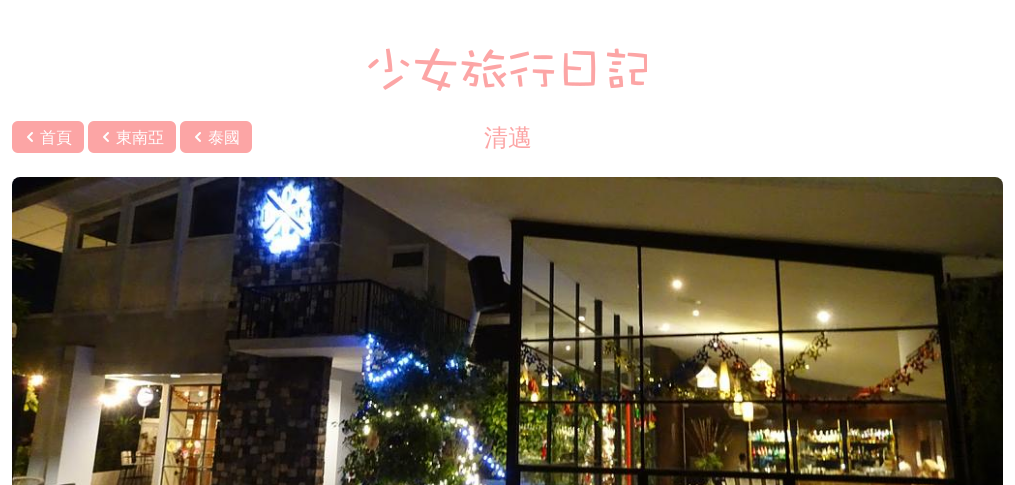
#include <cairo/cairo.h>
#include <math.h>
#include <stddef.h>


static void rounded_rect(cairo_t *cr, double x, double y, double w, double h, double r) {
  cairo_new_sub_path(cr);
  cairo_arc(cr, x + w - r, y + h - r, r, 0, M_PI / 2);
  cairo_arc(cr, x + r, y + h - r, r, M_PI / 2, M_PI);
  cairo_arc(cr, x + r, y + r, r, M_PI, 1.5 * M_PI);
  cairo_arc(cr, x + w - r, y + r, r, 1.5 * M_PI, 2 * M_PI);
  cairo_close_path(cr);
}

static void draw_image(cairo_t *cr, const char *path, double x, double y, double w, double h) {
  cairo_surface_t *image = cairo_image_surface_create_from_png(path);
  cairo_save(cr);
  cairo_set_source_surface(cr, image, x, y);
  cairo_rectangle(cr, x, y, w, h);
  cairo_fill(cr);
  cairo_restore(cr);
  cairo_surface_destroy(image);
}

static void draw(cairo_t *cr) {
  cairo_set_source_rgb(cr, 1, 1, 1);
  cairo_paint(cr);
  draw_image(cr, "images/1.png", 368, 48, 279, 43);
  cairo_set_source_rgb(cr, 252 / 255.0, 165 / 255.0, 165 / 255.0);
  rounded_rect(cr, 12, 121, 72, 32, 6);
  cairo_fill(cr);
  draw_image(cr, "images/2.png", 27, 132, 6, 10);
  rounded_rect(cr, 88, 121, 88, 32, 6);
  cairo_fill(cr);
  draw_image(cr, "images/2.png", 103, 132, 6, 10);
  rounded_rect(cr, 180, 121, 72, 32, 6);
  cairo_fill(cr);
  draw_image(cr, "images/2.png", 195, 132, 6, 10);
  draw_image(cr, "images/3.png", 12, 177, 991, 308);
  cairo_select_font_face(cr, "WenQuanYi Zen Hei Medium", CAIRO_FONT_SLANT_NORMAL, CAIRO_FONT_WEIGHT_NORMAL);
  cairo_set_font_size(cr, 16);
  cairo_set_source_rgb(cr, 1, 1, 1);
  cairo_move_to(cr, 40, 143);
  cairo_show_text(cr, "首頁");
  cairo_move_to(cr, 116, 143);
  cairo_show_text(cr, "東南亞");
  cairo_move_to(cr, 208, 143);
  cairo_show_text(cr, "泰國");
  cairo_set_font_size(cr, 24);
  cairo_set_source_rgb(cr, 252 / 255.0, 165 / 255.0, 165 / 255.0);
  cairo_move_to(cr, 484, 146);
  cairo_show_text(cr, "清邁");
}

int main(void) {
  cairo_surface_t *surface = cairo_image_surface_create(CAIRO_FORMAT_RGB24, 1015, 485);
  cairo_t *cr = cairo_create(surface);
  cairo_font_options_t *options = cairo_font_options_create();
  cairo_font_options_set_hint_metrics(options, CAIRO_HINT_METRICS_OFF);
  cairo_font_options_set_hint_style(options, CAIRO_HINT_STYLE_NONE);
  cairo_set_font_options(cr, options);
  cairo_set_miter_limit(cr, 4);
  draw(cr);
  cairo_surface_write_to_png(surface, "out.png");
  cairo_font_options_destroy(options);
  cairo_destroy(cr);
  cairo_surface_destroy(surface);
  return 0;
}
